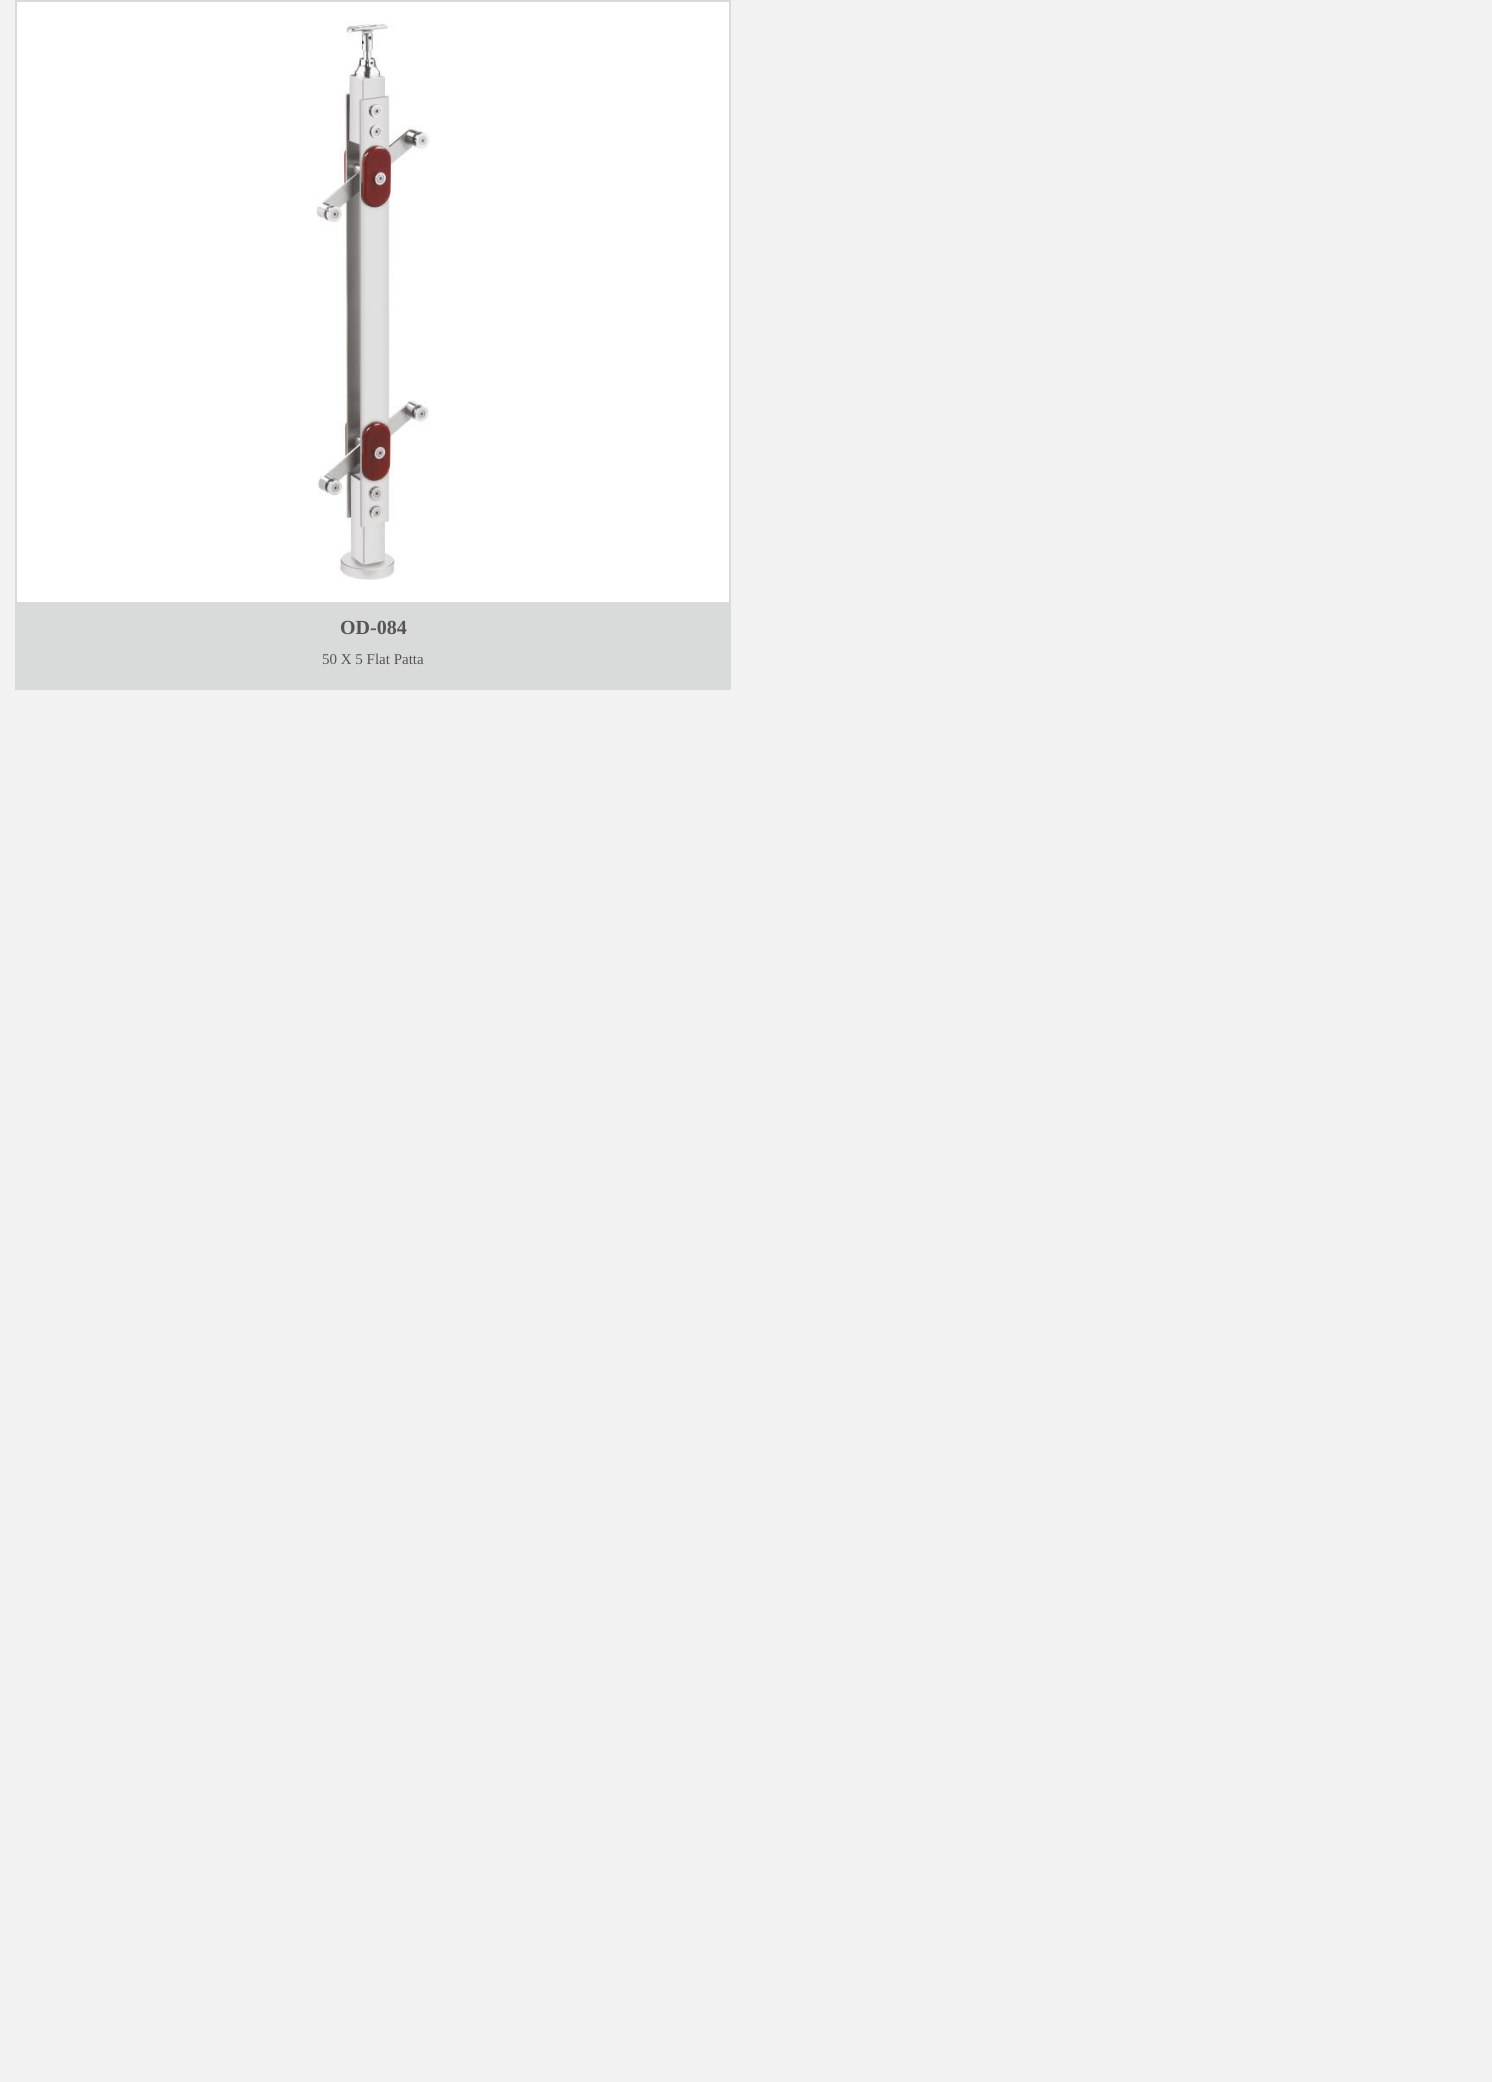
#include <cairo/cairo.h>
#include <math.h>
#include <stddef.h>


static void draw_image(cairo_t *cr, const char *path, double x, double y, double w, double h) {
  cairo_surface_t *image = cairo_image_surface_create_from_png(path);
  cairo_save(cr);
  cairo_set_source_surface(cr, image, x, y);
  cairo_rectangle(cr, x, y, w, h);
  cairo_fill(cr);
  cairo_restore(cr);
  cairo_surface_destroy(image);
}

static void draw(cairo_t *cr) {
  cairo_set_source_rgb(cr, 242 / 255.0, 242 / 255.0, 242 / 255.0);
  cairo_paint(cr);
  cairo_set_source_rgb(cr, 1, 1, 1);
  cairo_rectangle(cr, 16, 1, 714, 602);
  cairo_fill_preserve(cr);
  cairo_set_source_rgb(cr, 217 / 255.0, 218 / 255.0, 218 / 255.0);
  cairo_stroke(cr);
  draw_image(cr, "images/1.png", 316, 23, 114, 557);
  cairo_rectangle(cr, 15, 604, 716, 86);
  cairo_fill(cr);
  cairo_select_font_face(cr, "Liberation Serif", CAIRO_FONT_SLANT_NORMAL, CAIRO_FONT_WEIGHT_BOLD);
  cairo_set_font_size(cr, 20);
  cairo_set_source_rgb(cr, 85 / 255.0, 85 / 255.0, 85 / 255.0);
  cairo_move_to(cr, 340, 634);
  cairo_show_text(cr, "OD-084");
  cairo_select_font_face(cr, "Liberation Serif", CAIRO_FONT_SLANT_NORMAL, CAIRO_FONT_WEIGHT_NORMAL);
  cairo_set_font_size(cr, 15);
  cairo_move_to(cr, 322, 664);
  cairo_show_text(cr, "50 X 5 Flat Patta");
}

int main(void) {
  cairo_surface_t *surface = cairo_image_surface_create(CAIRO_FORMAT_RGB24, 1492, 2082);
  cairo_t *cr = cairo_create(surface);
  cairo_font_options_t *options = cairo_font_options_create();
  cairo_font_options_set_hint_metrics(options, CAIRO_HINT_METRICS_OFF);
  cairo_font_options_set_hint_style(options, CAIRO_HINT_STYLE_NONE);
  cairo_set_font_options(cr, options);
  cairo_set_miter_limit(cr, 4);
  draw(cr);
  cairo_surface_write_to_png(surface, "out.png");
  cairo_font_options_destroy(options);
  cairo_destroy(cr);
  cairo_surface_destroy(surface);
  return 0;
}
